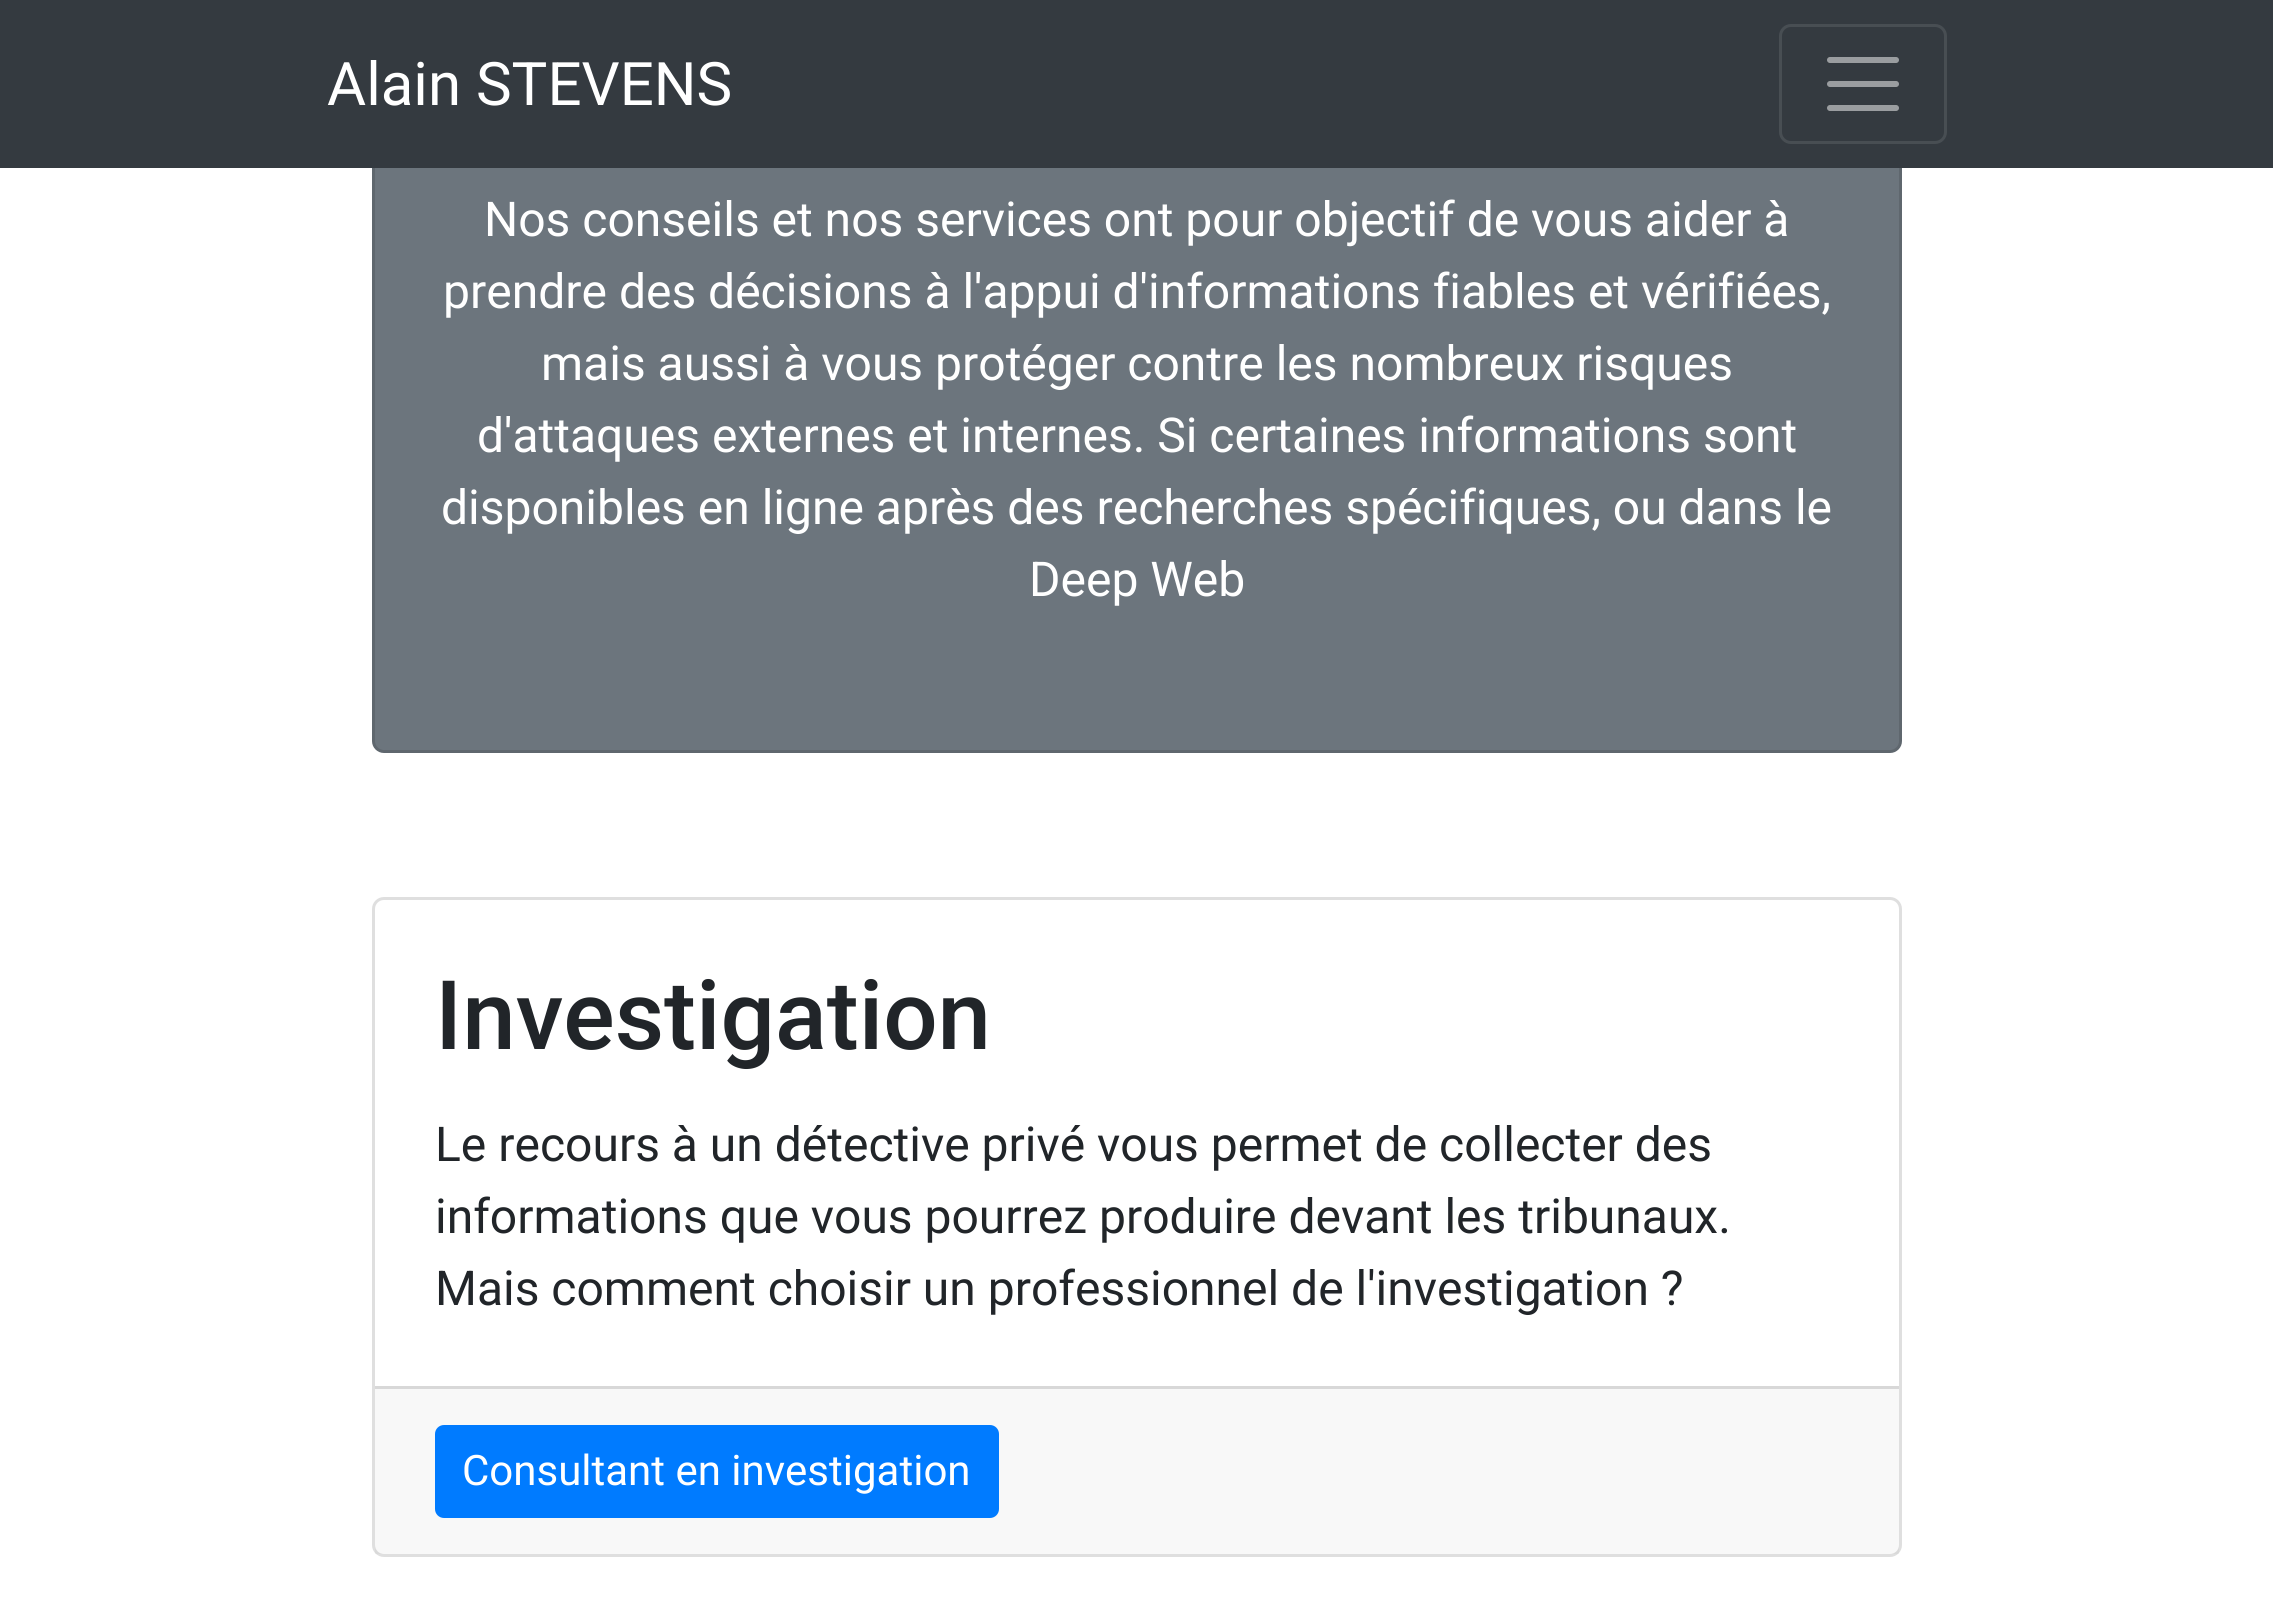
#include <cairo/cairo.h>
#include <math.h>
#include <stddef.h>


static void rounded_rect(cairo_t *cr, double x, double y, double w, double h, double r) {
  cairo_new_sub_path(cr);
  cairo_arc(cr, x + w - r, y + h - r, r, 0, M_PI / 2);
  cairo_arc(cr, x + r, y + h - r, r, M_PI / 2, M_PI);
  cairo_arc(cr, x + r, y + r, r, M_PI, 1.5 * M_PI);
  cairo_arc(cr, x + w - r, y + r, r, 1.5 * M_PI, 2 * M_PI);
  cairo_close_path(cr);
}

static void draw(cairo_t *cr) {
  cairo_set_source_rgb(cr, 1, 1, 1);
  cairo_paint(cr);
  cairo_set_source_rgb(cr, 108 / 255.0, 117 / 255.0, 125 / 255.0);
  rounded_rect(cr, 372, 51, 1530, 702, 12);
  cairo_fill(cr);
  rounded_rect(cr, 373.5, 52.5, 1527, 699, 10.5);
  cairo_set_source_rgba(cr, 0, 0, 0, 0.12);
  cairo_set_line_width(cr, 3);
  cairo_stroke(cr);
  cairo_set_source_rgb(cr, 52 / 255.0, 58 / 255.0, 64 / 255.0);
  cairo_rectangle(cr, 0, 0, 2273, 168);
  cairo_fill(cr);
  rounded_rect(cr, 1780.5, 25.5, 165, 117, 10.5);
  cairo_set_source_rgb(cr, 72 / 255.0, 78 / 255.0, 83 / 255.0);
  cairo_stroke(cr);
  cairo_new_path(cr);
  cairo_move_to(cr, 1830, 60);
  cairo_line_to(cr, 1896, 60);
  cairo_move_to(cr, 1830, 84);
  cairo_line_to(cr, 1896, 84);
  cairo_move_to(cr, 1830, 108);
  cairo_line_to(cr, 1896, 108);
  cairo_set_source_rgb(cr, 154 / 255.0, 157 / 255.0, 160 / 255.0);
  cairo_set_line_width(cr, 6);
  cairo_set_line_cap(cr, CAIRO_LINE_CAP_ROUND);
  cairo_stroke(cr);
  rounded_rect(cr, 373.5, 898.5, 1527, 657, 10.5);
  cairo_set_source_rgb(cr, 223 / 255.0, 223 / 255.0, 223 / 255.0);
  cairo_set_line_width(cr, 3);
  cairo_set_line_cap(cr, CAIRO_LINE_CAP_BUTT);
  cairo_stroke(cr);
  cairo_set_source_rgba(cr, 0, 0, 0, 0.03);
  cairo_rectangle(cr, 375, 1389, 1524, 165);
  cairo_fill(cr);
  cairo_set_source_rgb(cr, 216 / 255.0, 216 / 255.0, 216 / 255.0);
  cairo_rectangle(cr, 375, 1386, 1524, 3);
  cairo_fill(cr);
  cairo_set_source_rgb(cr, 0, 123 / 255.0, 1);
  rounded_rect(cr, 436.5, 1426.5, 561, 90, 7.5);
  cairo_fill_preserve(cr);
  cairo_stroke(cr);
  cairo_select_font_face(cr, "Roboto", CAIRO_FONT_SLANT_NORMAL, CAIRO_FONT_WEIGHT_NORMAL);
  cairo_set_font_size(cr, 60);
  cairo_set_source_rgb(cr, 1, 1, 1);
  cairo_move_to(cr, 327, 105);
  cairo_show_text(cr, "Alain STEVENS");
  cairo_set_font_size(cr, 48);
  cairo_move_to(cr, 484, 236);
  cairo_show_text(cr, "Nos conseils et nos services ont pour objectif de vous aider à");
  cairo_move_to(cr, 443, 308);
  cairo_show_text(cr, "prendre des décisions à l'appui d'informations fiables et vérifiées,");
  cairo_move_to(cr, 541, 380);
  cairo_show_text(cr, "mais aussi à vous protéger contre les nombreux risques");
  cairo_move_to(cr, 477, 452);
  cairo_show_text(cr, "d'attaques externes et internes. Si certaines informations sont");
  cairo_move_to(cr, 441, 524);
  cairo_show_text(cr, "disponibles en ligne après des recherches spécifiques, ou dans le");
  cairo_move_to(cr, 1029, 596);
  cairo_show_text(cr, "Deep Web");
  cairo_select_font_face(cr, "Roboto Medium", CAIRO_FONT_SLANT_NORMAL, CAIRO_FONT_WEIGHT_NORMAL);
  cairo_set_font_size(cr, 96);
  cairo_set_source_rgb(cr, 33 / 255.0, 37 / 255.0, 41 / 255.0);
  cairo_move_to(cr, 435, 1049);
  cairo_show_text(cr, "Investigation");
  cairo_select_font_face(cr, "Roboto", CAIRO_FONT_SLANT_NORMAL, CAIRO_FONT_WEIGHT_NORMAL);
  cairo_set_font_size(cr, 48);
  cairo_move_to(cr, 435, 1161);
  cairo_show_text(cr, "Le recours à un détective privé vous permet de collecter des");
  cairo_move_to(cr, 435, 1233);
  cairo_show_text(cr, "informations que vous pourrez produire devant les tribunaux.");
  cairo_move_to(cr, 435, 1305);
  cairo_show_text(cr, "Mais comment choisir un professionnel de l'investigation ?");
  cairo_set_font_size(cr, 42);
  cairo_set_source_rgb(cr, 1, 1, 1);
  cairo_move_to(cr, 462, 1485);
  cairo_show_text(cr, "Consultant en investigation");
}

int main(void) {
  cairo_surface_t *surface = cairo_image_surface_create(CAIRO_FORMAT_RGB24, 2273, 1604);
  cairo_t *cr = cairo_create(surface);
  cairo_font_options_t *options = cairo_font_options_create();
  cairo_font_options_set_hint_metrics(options, CAIRO_HINT_METRICS_OFF);
  cairo_font_options_set_hint_style(options, CAIRO_HINT_STYLE_NONE);
  cairo_set_font_options(cr, options);
  cairo_set_miter_limit(cr, 4);
  draw(cr);
  cairo_surface_write_to_png(surface, "out.png");
  cairo_font_options_destroy(options);
  cairo_destroy(cr);
  cairo_surface_destroy(surface);
  return 0;
}
